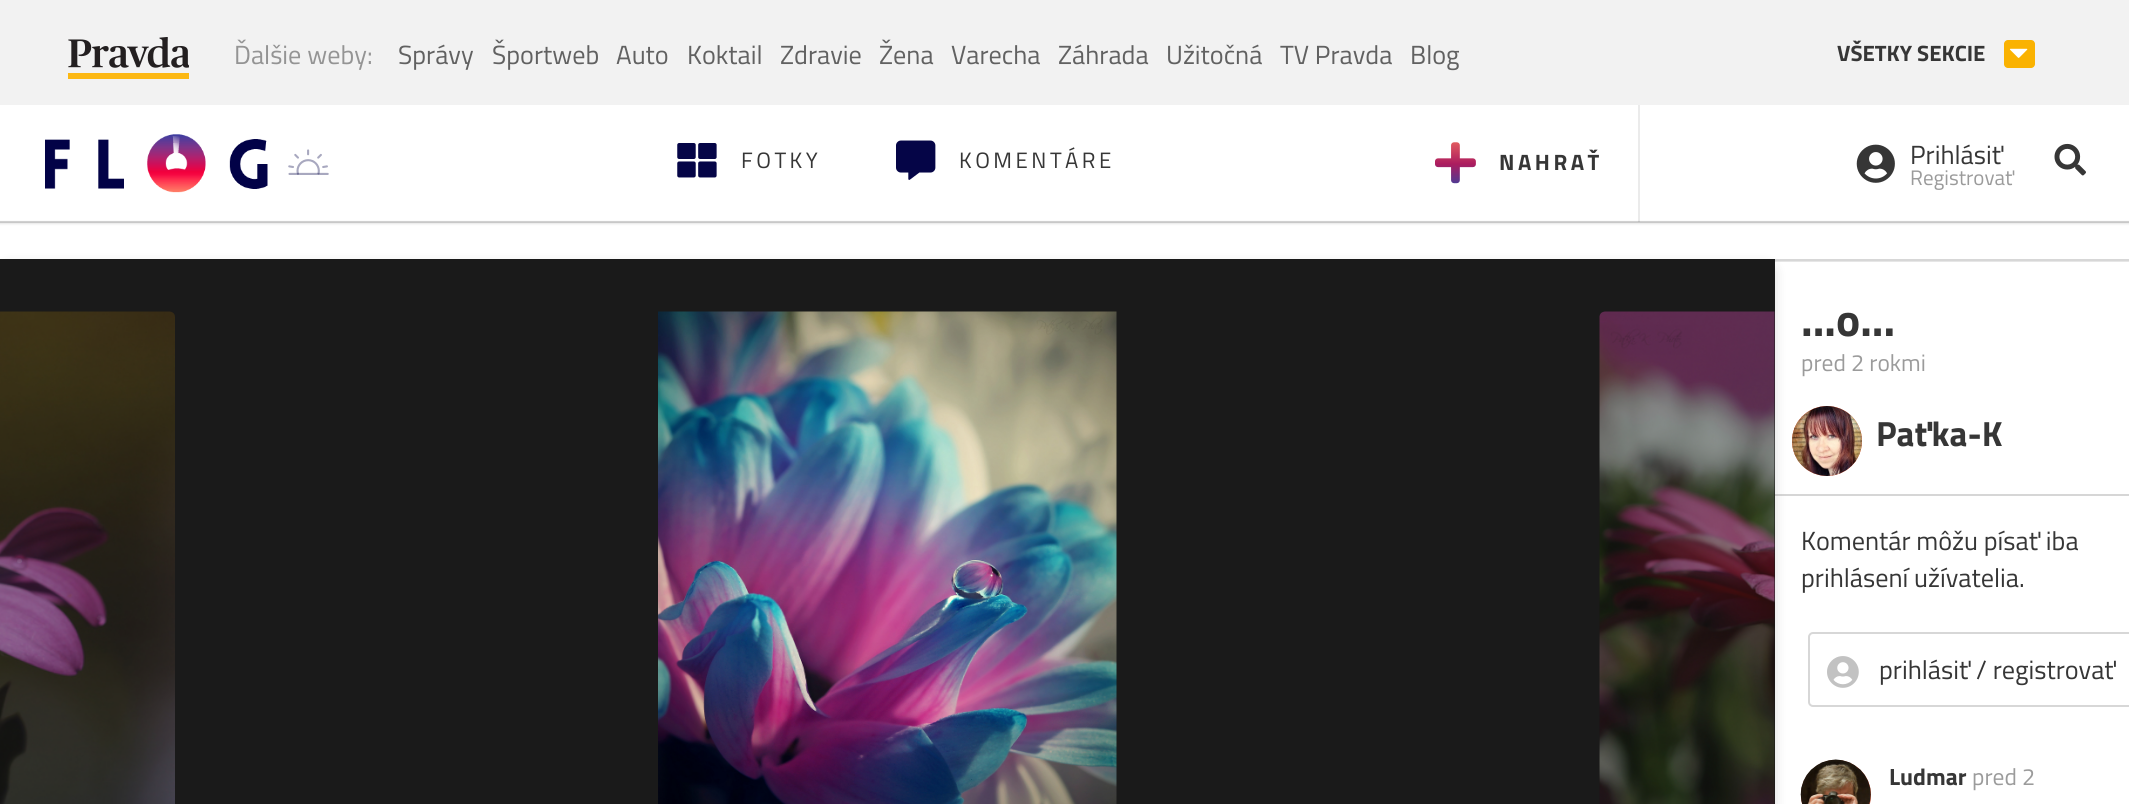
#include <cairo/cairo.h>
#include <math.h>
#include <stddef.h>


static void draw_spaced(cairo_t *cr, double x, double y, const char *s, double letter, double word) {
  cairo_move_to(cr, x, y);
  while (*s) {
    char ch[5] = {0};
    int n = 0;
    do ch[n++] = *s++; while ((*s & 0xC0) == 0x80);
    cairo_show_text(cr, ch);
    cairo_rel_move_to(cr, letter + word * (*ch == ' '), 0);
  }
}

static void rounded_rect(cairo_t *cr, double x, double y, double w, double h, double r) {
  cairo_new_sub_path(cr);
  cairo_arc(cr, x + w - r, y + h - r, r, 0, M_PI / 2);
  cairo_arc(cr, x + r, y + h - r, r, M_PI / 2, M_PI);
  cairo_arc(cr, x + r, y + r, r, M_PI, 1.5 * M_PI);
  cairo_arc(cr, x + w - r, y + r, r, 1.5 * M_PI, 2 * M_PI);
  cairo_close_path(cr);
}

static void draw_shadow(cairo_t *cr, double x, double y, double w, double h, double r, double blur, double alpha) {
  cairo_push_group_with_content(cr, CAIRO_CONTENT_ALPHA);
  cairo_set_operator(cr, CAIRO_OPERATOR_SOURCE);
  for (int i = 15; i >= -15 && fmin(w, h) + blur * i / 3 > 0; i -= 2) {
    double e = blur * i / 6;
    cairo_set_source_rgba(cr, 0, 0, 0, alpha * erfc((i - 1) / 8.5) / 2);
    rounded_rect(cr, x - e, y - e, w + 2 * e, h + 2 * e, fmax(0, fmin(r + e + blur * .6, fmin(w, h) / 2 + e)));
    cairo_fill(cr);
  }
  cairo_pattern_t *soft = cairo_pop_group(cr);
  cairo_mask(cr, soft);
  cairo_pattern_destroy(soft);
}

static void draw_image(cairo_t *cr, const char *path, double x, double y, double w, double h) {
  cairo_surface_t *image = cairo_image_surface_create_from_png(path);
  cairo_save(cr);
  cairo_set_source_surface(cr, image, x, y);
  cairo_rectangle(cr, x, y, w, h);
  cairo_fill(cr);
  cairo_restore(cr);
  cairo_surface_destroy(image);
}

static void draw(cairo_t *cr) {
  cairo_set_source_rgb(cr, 1, 1, 1);
  cairo_paint(cr);
  cairo_set_source_rgb(cr, 242 / 255.0, 242 / 255.0, 242 / 255.0);
  cairo_rectangle(cr, 0, 0, 2129, 105);
  cairo_fill(cr);
  draw_image(cr, "images/1.png", 68, 37, 121, 42);
  cairo_set_source_rgb(cr, 250 / 255.0, 178 / 255.0, 1 / 255.0);
  rounded_rect(cr, 2004, 40, 31, 28, 4);
  cairo_fill(cr);
  draw_image(cr, "images/2.png", 2009, 48, 19, 10);
  draw_image(cr, "images/3.png", 45, 134, 223, 59);
  draw_image(cr, "images/5.png", 173, 143, 6, 11);
  draw_image(cr, "images/4.png", 172, 136, 8, 17);
  draw_image(cr, "images/6.png", 288, 149, 41, 26);
  draw_image(cr, "images/7.png", 677, 143, 40, 35);
  draw_image(cr, "images/8.png", 896, 140, 40, 40);
  cairo_set_source_rgb(cr, 235 / 255.0, 235 / 255.0, 235 / 255.0);
  cairo_rectangle(cr, 1638, 105, 2, 117);
  cairo_fill(cr);
  draw_image(cr, "images/9.png", 1435, 142, 41, 42);
  draw_image(cr, "images/10.png", 1856, 144, 39, 39);
  draw_image(cr, "images/11.png", 2054, 143, 32, 33);
  cairo_set_source_rgb(cr, 0, 0, 0);
  draw_shadow(cr, -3, 222, 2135, 2, 0, 1, 0.1);
  cairo_set_source_rgba(cr, 54 / 255.0, 54 / 255.0, 54 / 255.0, 0.2);
  cairo_rectangle(cr, 0, 221, 2129, 2);
  cairo_fill(cr);
  cairo_save(cr);
  cairo_rectangle(cr, 2, 261, 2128, 7);
  cairo_clip(cr);
  cairo_set_source_rgb(cr, 230 / 255.0, 230 / 255.0, 230 / 255.0);
  cairo_set_fill_rule(cr, CAIRO_FILL_RULE_EVEN_ODD);
  cairo_new_path(cr);
  cairo_move_to(cr, -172, 88);
  cairo_line_to(cr, 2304, 88);
  cairo_line_to(cr, 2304, 441);
  cairo_line_to(cr, -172, 441);
  cairo_close_path(cr);
  cairo_move_to(cr, 3, 262);
  cairo_line_to(cr, 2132, 262);
  cairo_line_to(cr, 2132, 270);
  cairo_line_to(cr, 3, 270);
  cairo_close_path(cr);
  cairo_fill(cr);
  cairo_restore(cr);
  cairo_set_source_rgb(cr, 215 / 255.0, 215 / 255.0, 215 / 255.0);
  cairo_rectangle(cr, 1775, 259, 354, 2);
  cairo_fill(cr);
  cairo_set_source_rgb(cr, 26 / 255.0, 26 / 255.0, 26 / 255.0);
  cairo_rectangle(cr, 0, 259, 1775, 545);
  cairo_fill(cr);
  cairo_save(cr);
  cairo_set_fill_rule(cr, CAIRO_FILL_RULE_EVEN_ODD);
  cairo_new_path(cr);
  cairo_move_to(cr, 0, 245);
  cairo_line_to(cr, 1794, 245);
  cairo_line_to(cr, 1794, 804);
  cairo_line_to(cr, 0, 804);
  cairo_close_path(cr);
  cairo_move_to(cr, 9, 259);
  cairo_line_to(cr, 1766, 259);
  cairo_curve_to(cr, 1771, 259, 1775, 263, 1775, 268);
  cairo_line_to(cr, 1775, 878);
  cairo_curve_to(cr, 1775, 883, 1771, 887, 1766, 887);
  cairo_line_to(cr, 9, 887);
  cairo_curve_to(cr, 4, 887, 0, 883, 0, 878);
  cairo_line_to(cr, 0, 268);
  cairo_curve_to(cr, 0, 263, 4, 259, 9, 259);
  cairo_close_path(cr);
  cairo_clip(cr);
  cairo_set_source_rgb(cr, 23 / 255.0, 23 / 255.0, 22 / 255.0);
  draw_shadow(cr, 0, 264, 1775, 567, 9, 6, 0.15);
  cairo_restore(cr);
  draw_image(cr, "images/12.png", 0, 311, 175, 493);
  draw_image(cr, "images/13.png", 658, 311, 459, 493);
  draw_image(cr, "images/14.png", 1599, 311, 176, 493);
  cairo_set_source_rgb(cr, 233 / 255.0, 107 / 255.0, 77 / 255.0);
  cairo_arc(cr, 1827, 441, 35, 0, 2 * M_PI);
  cairo_fill(cr);
  draw_image(cr, "images/15.png", 1792, 406, 70, 70);
  cairo_arc(cr, 1827, 441, 34, 0, 2 * M_PI);
  cairo_set_source_rgba(cr, 54 / 255.0, 54 / 255.0, 54 / 255.0, 0.1);
  cairo_stroke(cr);
  cairo_set_source_rgba(cr, 54 / 255.0, 54 / 255.0, 54 / 255.0, 0.2);
  cairo_rectangle(cr, 1775, 494, 354, 2);
  cairo_fill(cr);
  rounded_rect(cr, 1809, 633, 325, 73, 4);
  cairo_set_source_rgb(cr, 215 / 255.0, 215 / 255.0, 215 / 255.0);
  cairo_stroke(cr);
  draw_image(cr, "images/16.png", 1827, 656, 32, 32);
  cairo_set_source_rgb(cr, 233 / 255.0, 107 / 255.0, 77 / 255.0);
  cairo_arc(cr, 1836, 795, 35, 0, 2 * M_PI);
  cairo_fill(cr);
  draw_image(cr, "images/17.png", 1800, 759, 71, 45);
  cairo_arc(cr, 1836, 795, 34, 0, 2 * M_PI);
  cairo_set_source_rgba(cr, 54 / 255.0, 54 / 255.0, 54 / 255.0, 0.1);
  cairo_stroke(cr);
  cairo_select_font_face(cr, "Titillium Web", CAIRO_FONT_SLANT_NORMAL, CAIRO_FONT_WEIGHT_NORMAL);
  cairo_set_font_size(cr, 26.25);
  cairo_set_source_rgb(cr, 148 / 255.0, 148 / 255.0, 148 / 255.0);
  cairo_move_to(cr, 234, 64);
  cairo_show_text(cr, "Ďalšie weby:");
  cairo_set_source_rgb(cr, 97 / 255.0, 97 / 255.0, 97 / 255.0);
  cairo_move_to(cr, 398, 64);
  cairo_show_text(cr, "Správy");
  cairo_move_to(cr, 492, 64);
  cairo_show_text(cr, "Športweb");
  cairo_move_to(cr, 616, 64);
  cairo_show_text(cr, "Auto");
  cairo_move_to(cr, 687, 64);
  cairo_show_text(cr, "Koktail");
  cairo_move_to(cr, 780, 64);
  cairo_show_text(cr, "Zdravie");
  cairo_move_to(cr, 879, 64);
  cairo_show_text(cr, "Žena");
  cairo_move_to(cr, 951, 64);
  cairo_show_text(cr, "Varecha");
  cairo_move_to(cr, 1058, 64);
  cairo_show_text(cr, "Záhrada");
  cairo_move_to(cr, 1166, 64);
  cairo_show_text(cr, "Užitočná");
  cairo_move_to(cr, 1280, 64);
  cairo_show_text(cr, "TV Pravda");
  cairo_move_to(cr, 1410, 64);
  cairo_show_text(cr, "Blog");
  cairo_select_font_face(cr, "Titillium Web", CAIRO_FONT_SLANT_NORMAL, CAIRO_FONT_WEIGHT_BOLD);
  cairo_set_font_size(cr, 22.25);
  cairo_set_source_rgb(cr, 54 / 255.0, 54 / 255.0, 54 / 255.0);
  cairo_move_to(cr, 1837, 61);
  cairo_show_text(cr, "VŠETKY SEKCIE");
  cairo_select_font_face(cr, "Titillium Web", CAIRO_FONT_SLANT_NORMAL, CAIRO_FONT_WEIGHT_NORMAL);
  draw_spaced(cr, 741, 168, "FOTKY", 3.5, 0);
  draw_spaced(cr, 959, 168, "KOMENTÁRE", 3.5, 0);
  cairo_select_font_face(cr, "Titillium Web", CAIRO_FONT_SLANT_NORMAL, CAIRO_FONT_WEIGHT_BOLD);
  draw_spaced(cr, 1499, 170, "NAHRAŤ", 3.5, 0);
  cairo_select_font_face(cr, "Titillium Web", CAIRO_FONT_SLANT_NORMAL, CAIRO_FONT_WEIGHT_NORMAL);
  cairo_set_font_size(cr, 26.25);
  cairo_move_to(cr, 1910, 164);
  cairo_show_text(cr, "Prihlásiť");
  cairo_set_font_size(cr, 21);
  cairo_set_source_rgb(cr, 155 / 255.0, 155 / 255.0, 155 / 255.0);
  cairo_move_to(cr, 1910, 185);
  cairo_show_text(cr, "Registrovať");
  cairo_select_font_face(cr, "Titillium Web", CAIRO_FONT_SLANT_NORMAL, CAIRO_FONT_WEIGHT_BOLD);
  cairo_set_font_size(cr, 45.5);
  cairo_set_source_rgb(cr, 54 / 255.0, 54 / 255.0, 54 / 255.0);
  cairo_move_to(cr, 1801, 336);
  cairo_show_text(cr, "...o...");
  cairo_select_font_face(cr, "Titillium Web", CAIRO_FONT_SLANT_NORMAL, CAIRO_FONT_WEIGHT_NORMAL);
  cairo_set_font_size(cr, 23.5);
  cairo_set_source_rgb(cr, 155 / 255.0, 155 / 255.0, 155 / 255.0);
  cairo_move_to(cr, 1801, 371);
  cairo_show_text(cr, "pred 2 rokmi");
  cairo_select_font_face(cr, "Titillium Web", CAIRO_FONT_SLANT_NORMAL, CAIRO_FONT_WEIGHT_BOLD);
  cairo_set_font_size(cr, 35);
  cairo_set_source_rgb(cr, 54 / 255.0, 54 / 255.0, 54 / 255.0);
  cairo_move_to(cr, 1876, 446);
  cairo_show_text(cr, "Paťka-K");
  cairo_select_font_face(cr, "Titillium Web", CAIRO_FONT_SLANT_NORMAL, CAIRO_FONT_WEIGHT_NORMAL);
  cairo_set_font_size(cr, 26.25);
  cairo_move_to(cr, 1801, 550);
  cairo_show_text(cr, "Komentár môžu písať iba");
  cairo_move_to(cr, 1801, 587);
  cairo_show_text(cr, "prihlásení užívatelia.");
  cairo_move_to(cr, 1879, 679);
  cairo_show_text(cr, "prihlásiť / registrovať");
  cairo_select_font_face(cr, "Titillium Web", CAIRO_FONT_SLANT_NORMAL, CAIRO_FONT_WEIGHT_BOLD);
  cairo_set_font_size(cr, 23.5);
  cairo_move_to(cr, 1889, 785);
  cairo_show_text(cr, "Ludmar");
  cairo_select_font_face(cr, "Titillium Web", CAIRO_FONT_SLANT_NORMAL, CAIRO_FONT_WEIGHT_NORMAL);
  cairo_set_source_rgb(cr, 155 / 255.0, 155 / 255.0, 155 / 255.0);
  cairo_move_to(cr, 1972, 785);
  cairo_show_text(cr, "pred 2");
}

int main(void) {
  cairo_surface_t *surface = cairo_image_surface_create(CAIRO_FORMAT_RGB24, 2129, 804);
  cairo_t *cr = cairo_create(surface);
  cairo_font_options_t *options = cairo_font_options_create();
  cairo_font_options_set_hint_metrics(options, CAIRO_HINT_METRICS_OFF);
  cairo_font_options_set_hint_style(options, CAIRO_HINT_STYLE_NONE);
  cairo_set_font_options(cr, options);
  cairo_set_miter_limit(cr, 4);
  draw(cr);
  cairo_surface_write_to_png(surface, "out.png");
  cairo_font_options_destroy(options);
  cairo_destroy(cr);
  cairo_surface_destroy(surface);
  return 0;
}
